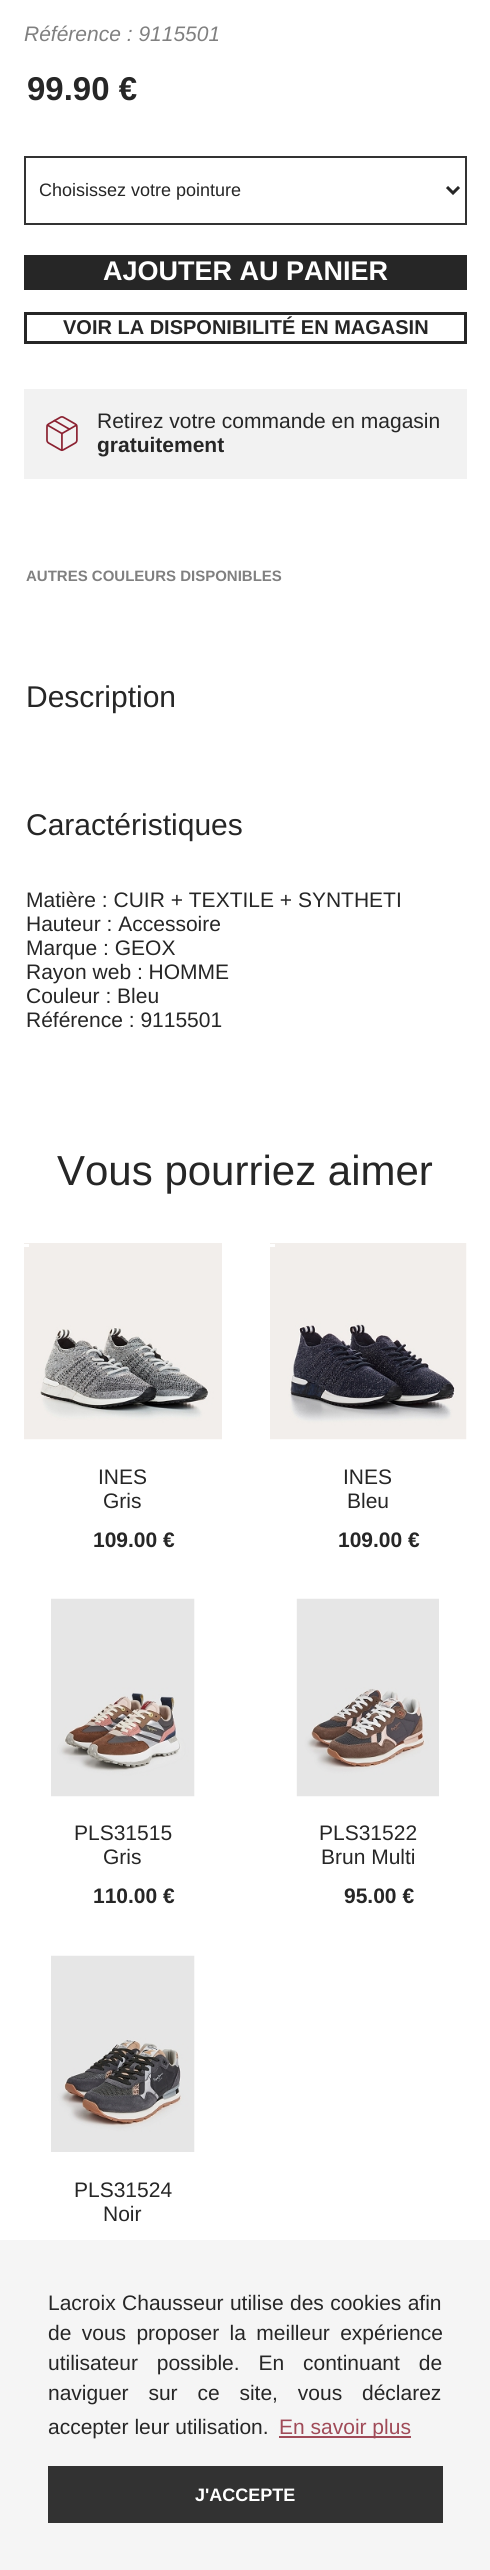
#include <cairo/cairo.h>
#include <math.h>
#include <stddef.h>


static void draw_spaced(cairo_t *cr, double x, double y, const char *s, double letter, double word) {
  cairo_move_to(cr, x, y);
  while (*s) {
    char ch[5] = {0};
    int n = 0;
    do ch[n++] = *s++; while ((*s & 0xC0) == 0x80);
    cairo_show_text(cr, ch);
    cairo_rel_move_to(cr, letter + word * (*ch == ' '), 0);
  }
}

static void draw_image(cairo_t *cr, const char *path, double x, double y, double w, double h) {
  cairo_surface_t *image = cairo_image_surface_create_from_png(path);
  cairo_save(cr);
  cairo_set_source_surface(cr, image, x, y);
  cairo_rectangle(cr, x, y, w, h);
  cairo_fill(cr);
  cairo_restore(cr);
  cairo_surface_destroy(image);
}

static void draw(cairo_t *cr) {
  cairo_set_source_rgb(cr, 1, 1, 1);
  cairo_paint(cr);
  cairo_rectangle(cr, 25, 157, 441, 67);
  cairo_set_source_rgb(cr, 51 / 255.0, 51 / 255.0, 51 / 255.0);
  cairo_stroke(cr);
  cairo_new_path(cr);
  cairo_move_to(cr, 447, 187);
  cairo_line_to(cr, 453, 193);
  cairo_line_to(cr, 459, 187);
  cairo_set_source_rgb(cr, 38 / 255.0, 38 / 255.0, 38 / 255.0);
  cairo_set_line_width(cr, 3);
  cairo_stroke(cr);
  cairo_rectangle(cr, 24, 255, 443, 35);
  cairo_fill(cr);
  cairo_rectangle(cr, 25.5, 313.5, 440, 29);
  cairo_stroke(cr);
  cairo_set_source_rgb(cr, 242 / 255.0, 242 / 255.0, 242 / 255.0);
  cairo_rectangle(cr, 24, 389, 443, 90);
  cairo_fill(cr);
  draw_image(cr, "images/1.png", 46, 416, 32, 36);
  draw_image(cr, "images/2.png", 24, 1243, 198, 197);
  cairo_set_source_rgb(cr, 1, 1, 1);
  cairo_rectangle(cr, 24, 1244, 5, 3);
  cairo_fill(cr);
  draw_image(cr, "images/3.png", 270, 1243, 197, 197);
  cairo_rectangle(cr, 270, 1244, 5, 3);
  cairo_fill(cr);
  draw_image(cr, "images/4.png", 51, 1598, 144, 199);
  draw_image(cr, "images/5.png", 296, 1598, 143, 199);
  draw_image(cr, "images/6.png", 51, 1955, 144, 197);
  cairo_set_source_rgb(cr, 245 / 255.0, 245 / 255.0, 245 / 255.0);
  cairo_rectangle(cr, 0, 2240, 490, 330);
  cairo_fill(cr);
  cairo_set_source_rgb(cr, 160 / 255.0, 75 / 255.0, 88 / 255.0);
  cairo_rectangle(cr, 279, 2436, 132, 2);
  cairo_fill(cr);
  cairo_set_source_rgb(cr, 50 / 255.0, 50 / 255.0, 50 / 255.0);
  cairo_rectangle(cr, 48, 2466, 395, 57);
  cairo_fill(cr);
  cairo_select_font_face(cr, "Liberation Sans", CAIRO_FONT_SLANT_ITALIC, CAIRO_FONT_WEIGHT_NORMAL);
  cairo_set_font_size(cr, 21);
  cairo_set_source_rgb(cr, 128 / 255.0, 128 / 255.0, 128 / 255.0);
  cairo_move_to(cr, 24, 41);
  cairo_show_text(cr, "Référence : 9115501");
  cairo_select_font_face(cr, "Liberation Sans", CAIRO_FONT_SLANT_NORMAL, CAIRO_FONT_WEIGHT_BOLD);
  cairo_set_font_size(cr, 33);
  cairo_set_source_rgb(cr, 38 / 255.0, 38 / 255.0, 38 / 255.0);
  cairo_move_to(cr, 27, 100);
  cairo_show_text(cr, "99.90 €");
  cairo_select_font_face(cr, "Liberation Sans", CAIRO_FONT_SLANT_NORMAL, CAIRO_FONT_WEIGHT_NORMAL);
  cairo_set_font_size(cr, 18);
  cairo_move_to(cr, 39, 196);
  cairo_show_text(cr, "Choisissez votre pointure");
  cairo_select_font_face(cr, "Liberation Sans", CAIRO_FONT_SLANT_NORMAL, CAIRO_FONT_WEIGHT_BOLD);
  cairo_set_font_size(cr, 27);
  cairo_set_source_rgb(cr, 1, 1, 1);
  cairo_move_to(cr, 103, 280);
  cairo_show_text(cr, "AJOUTER AU PANIER");
  cairo_set_font_size(cr, 20);
  cairo_set_source_rgb(cr, 38 / 255.0, 38 / 255.0, 38 / 255.0);
  cairo_move_to(cr, 63, 334);
  cairo_show_text(cr, "VOIR LA DISPONIBILITÉ EN MAGASIN");
  cairo_select_font_face(cr, "Liberation Sans", CAIRO_FONT_SLANT_NORMAL, CAIRO_FONT_WEIGHT_NORMAL);
  cairo_set_font_size(cr, 21);
  cairo_move_to(cr, 97, 428);
  cairo_show_text(cr, "Retirez votre commande en magasin");
  cairo_select_font_face(cr, "Liberation Sans", CAIRO_FONT_SLANT_NORMAL, CAIRO_FONT_WEIGHT_BOLD);
  cairo_move_to(cr, 97, 452);
  cairo_show_text(cr, "gratuitement");
  cairo_set_font_size(cr, 15);
  cairo_set_source_rgb(cr, 128 / 255.0, 128 / 255.0, 128 / 255.0);
  cairo_move_to(cr, 26, 581);
  cairo_show_text(cr, "AUTRES COULEURS DISPONIBLES");
  cairo_select_font_face(cr, "Liberation Sans", CAIRO_FONT_SLANT_NORMAL, CAIRO_FONT_WEIGHT_NORMAL);
  cairo_set_font_size(cr, 30);
  cairo_set_source_rgb(cr, 38 / 255.0, 38 / 255.0, 38 / 255.0);
  cairo_move_to(cr, 26, 707);
  cairo_show_text(cr, "Description");
  cairo_move_to(cr, 26, 835);
  cairo_show_text(cr, "Caractéristiques");
  cairo_set_font_size(cr, 21);
  cairo_move_to(cr, 26, 907);
  cairo_show_text(cr, "Matière : CUIR + TEXTILE + SYNTHETI");
  cairo_move_to(cr, 26, 931);
  cairo_show_text(cr, "Hauteur : Accessoire");
  cairo_move_to(cr, 26, 955);
  cairo_show_text(cr, "Marque : GEOX");
  cairo_move_to(cr, 26, 979);
  cairo_show_text(cr, "Rayon web : HOMME");
  cairo_move_to(cr, 26, 1003);
  cairo_show_text(cr, "Couleur : Bleu");
  cairo_move_to(cr, 26, 1027);
  cairo_show_text(cr, "Référence : 9115501");
  cairo_set_font_size(cr, 42);
  cairo_move_to(cr, 57, 1185);
  cairo_show_text(cr, "Vous pourriez aimer");
  cairo_set_font_size(cr, 21);
  cairo_move_to(cr, 98, 1484);
  cairo_show_text(cr, "INES");
  cairo_move_to(cr, 103, 1508);
  cairo_show_text(cr, "Gris");
  cairo_select_font_face(cr, "Liberation Sans", CAIRO_FONT_SLANT_NORMAL, CAIRO_FONT_WEIGHT_BOLD);
  cairo_move_to(cr, 93, 1547);
  cairo_show_text(cr, "109.00 €");
  cairo_select_font_face(cr, "Liberation Sans", CAIRO_FONT_SLANT_NORMAL, CAIRO_FONT_WEIGHT_NORMAL);
  cairo_move_to(cr, 343, 1484);
  cairo_show_text(cr, "INES");
  cairo_move_to(cr, 347, 1508);
  cairo_show_text(cr, "Bleu");
  cairo_select_font_face(cr, "Liberation Sans", CAIRO_FONT_SLANT_NORMAL, CAIRO_FONT_WEIGHT_BOLD);
  cairo_move_to(cr, 338, 1547);
  cairo_show_text(cr, "109.00 €");
  cairo_select_font_face(cr, "Liberation Sans", CAIRO_FONT_SLANT_NORMAL, CAIRO_FONT_WEIGHT_NORMAL);
  cairo_move_to(cr, 74, 1840);
  cairo_show_text(cr, "PLS31515");
  cairo_move_to(cr, 103, 1864);
  cairo_show_text(cr, "Gris");
  cairo_select_font_face(cr, "Liberation Sans", CAIRO_FONT_SLANT_NORMAL, CAIRO_FONT_WEIGHT_BOLD);
  cairo_move_to(cr, 93, 1903);
  cairo_show_text(cr, "110.00 €");
  cairo_select_font_face(cr, "Liberation Sans", CAIRO_FONT_SLANT_NORMAL, CAIRO_FONT_WEIGHT_NORMAL);
  cairo_move_to(cr, 319, 1840);
  cairo_show_text(cr, "PLS31522");
  cairo_move_to(cr, 321, 1864);
  cairo_show_text(cr, "Brun Multi");
  cairo_select_font_face(cr, "Liberation Sans", CAIRO_FONT_SLANT_NORMAL, CAIRO_FONT_WEIGHT_BOLD);
  cairo_move_to(cr, 344, 1903);
  cairo_show_text(cr, "95.00 €");
  cairo_select_font_face(cr, "Liberation Sans", CAIRO_FONT_SLANT_NORMAL, CAIRO_FONT_WEIGHT_NORMAL);
  cairo_move_to(cr, 74, 2197);
  cairo_show_text(cr, "PLS31524");
  cairo_move_to(cr, 103, 2221);
  cairo_show_text(cr, "Noir");
  draw_spaced(cr, 48, 2310, "Lacroix Chausseur utilise des cookies afin", 0, 0.5);
  draw_spaced(cr, 48, 2340, "de vous proposer la meilleur expérience", 0, 4.5);
  draw_spaced(cr, 48, 2370, "utilisateur possible. En continuant de", 0, 13);
  draw_spaced(cr, 48, 2400, "naviguer sur ce site, vous déclarez", 0, 14);
  cairo_move_to(cr, 48, 2434);
  cairo_show_text(cr, "accepter leur utilisation.");
  cairo_set_source_rgb(cr, 160 / 255.0, 75 / 255.0, 88 / 255.0);
  cairo_move_to(cr, 279, 2434);
  cairo_show_text(cr, "En savoir plus");
  cairo_select_font_face(cr, "Liberation Sans", CAIRO_FONT_SLANT_NORMAL, CAIRO_FONT_WEIGHT_BOLD);
  cairo_set_font_size(cr, 18);
  cairo_set_source_rgb(cr, 1, 1, 1);
  cairo_move_to(cr, 195, 2501);
  cairo_show_text(cr, "J'ACCEPTE");
}

int main(void) {
  cairo_surface_t *surface = cairo_image_surface_create(CAIRO_FORMAT_RGB24, 490, 2570);
  cairo_t *cr = cairo_create(surface);
  cairo_font_options_t *options = cairo_font_options_create();
  cairo_font_options_set_hint_metrics(options, CAIRO_HINT_METRICS_OFF);
  cairo_font_options_set_hint_style(options, CAIRO_HINT_STYLE_NONE);
  cairo_set_font_options(cr, options);
  cairo_set_miter_limit(cr, 4);
  draw(cr);
  cairo_surface_write_to_png(surface, "out.png");
  cairo_font_options_destroy(options);
  cairo_destroy(cr);
  cairo_surface_destroy(surface);
  return 0;
}
